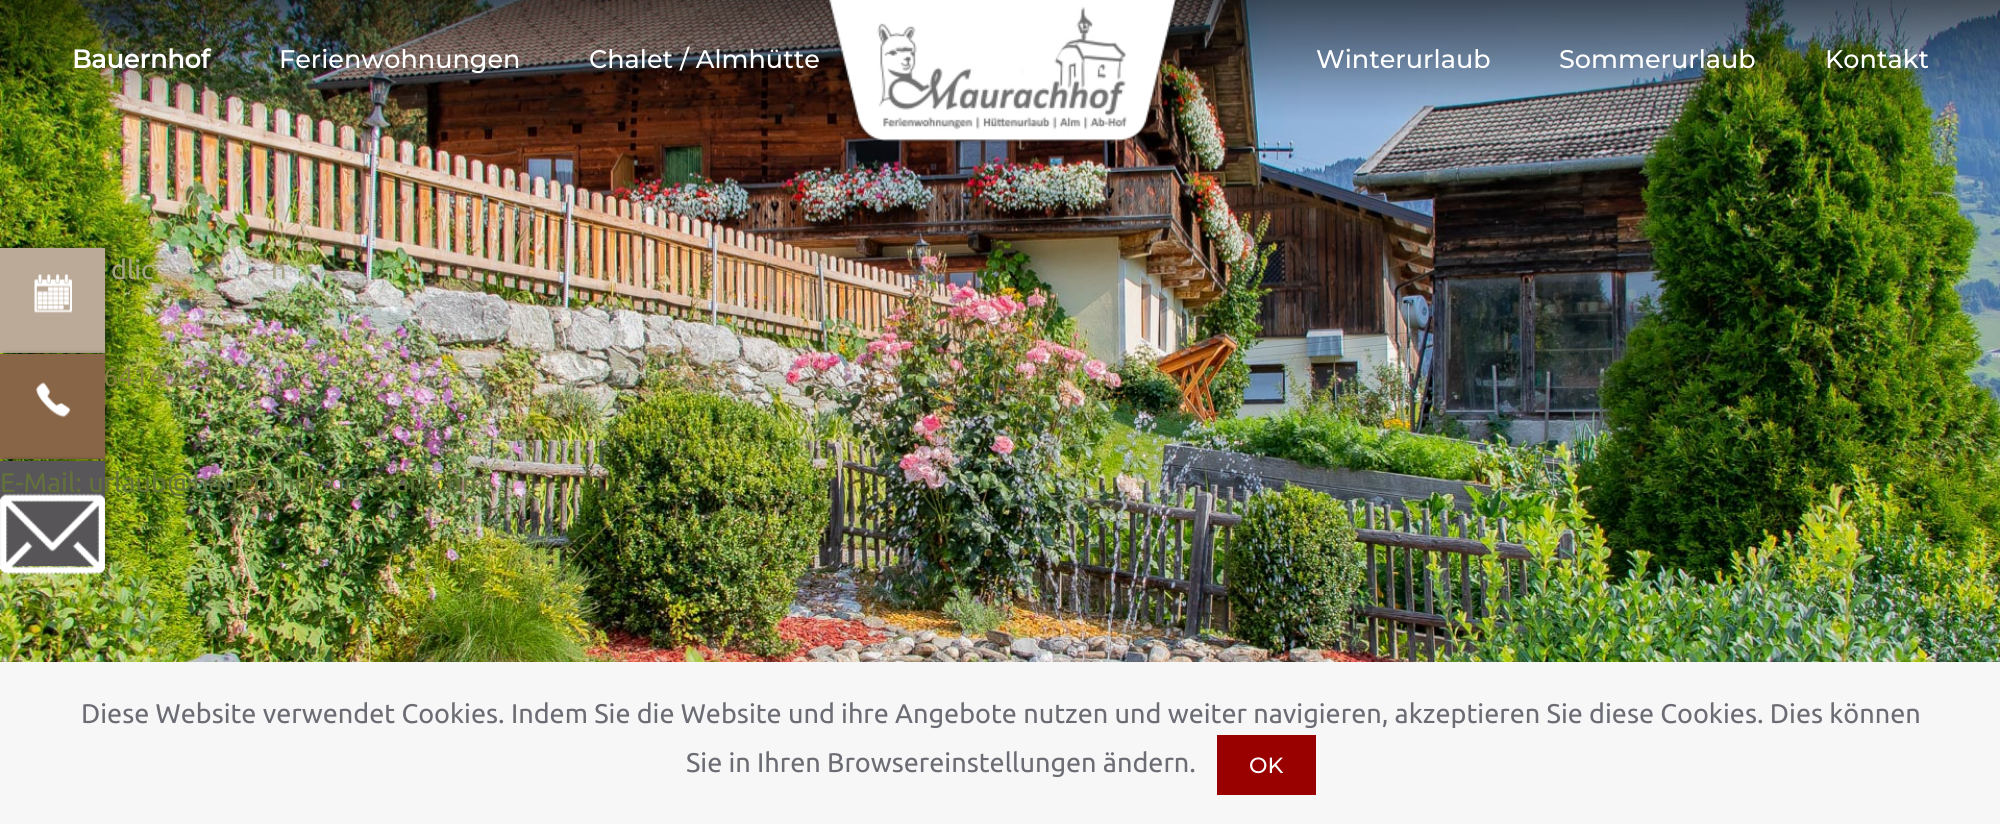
#include <cairo/cairo.h>
#include <math.h>
#include <stddef.h>


static void rounded_rect(cairo_t *cr, double x, double y, double w, double h, double r) {
  cairo_new_sub_path(cr);
  cairo_arc(cr, x + w - r, y + h - r, r, 0, M_PI / 2);
  cairo_arc(cr, x + r, y + h - r, r, M_PI / 2, M_PI);
  cairo_arc(cr, x + r, y + r, r, M_PI, 1.5 * M_PI);
  cairo_arc(cr, x + w - r, y + r, r, 1.5 * M_PI, 2 * M_PI);
  cairo_close_path(cr);
}

static void draw_shadow(cairo_t *cr, double x, double y, double w, double h, double r, double blur, double alpha) {
  cairo_push_group_with_content(cr, CAIRO_CONTENT_ALPHA);
  cairo_set_operator(cr, CAIRO_OPERATOR_SOURCE);
  for (int i = 15; i >= -15 && fmin(w, h) + blur * i / 3 > 0; i -= 2) {
    double e = blur * i / 6;
    cairo_set_source_rgba(cr, 0, 0, 0, alpha * erfc((i - 1) / 8.5) / 2);
    rounded_rect(cr, x - e, y - e, w + 2 * e, h + 2 * e, fmax(0, fmin(r + e + blur * .6, fmin(w, h) / 2 + e)));
    cairo_fill(cr);
  }
  cairo_pattern_t *soft = cairo_pop_group(cr);
  cairo_mask(cr, soft);
  cairo_pattern_destroy(soft);
}

static void draw_image(cairo_t *cr, const char *path, double x, double y, double w, double h) {
  cairo_surface_t *image = cairo_image_surface_create_from_png(path);
  cairo_save(cr);
  cairo_set_source_surface(cr, image, x, y);
  cairo_rectangle(cr, x, y, w, h);
  cairo_fill(cr);
  cairo_restore(cr);
  cairo_surface_destroy(image);
}

static void draw(cairo_t *cr) {
  cairo_set_source_rgb(cr, 1, 1, 1);
  cairo_paint(cr);
  draw_image(cr, "images/1.png", 0, 0, 2000, 662);
  draw_image(cr, "images/2.png", 826, 0, 352, 144);
  cairo_set_source_rgb(cr, 0, 0, 0);
  draw_shadow(cr, 5, 246, 105, 105, 0, 2, 0.25);
  cairo_set_source_rgb(cr, 188 / 255.0, 170 / 255.0, 152 / 255.0);
  cairo_rectangle(cr, 0, 248, 105, 105);
  cairo_fill(cr);
  draw_image(cr, "images/3.png", 34, 274, 38, 39);
  cairo_set_source_rgb(cr, 0, 0, 0);
  draw_shadow(cr, 5, 353, 105, 105, 0, 2, 0.25);
  cairo_set_source_rgb(cr, 136 / 255.0, 101 / 255.0, 71 / 255.0);
  cairo_rectangle(cr, 0, 354, 105, 105);
  cairo_fill(cr);
  draw_image(cr, "images/4.png", 36, 382, 35, 36);
  cairo_set_source_rgb(cr, 0, 0, 0);
  draw_shadow(cr, 5, 459, 105, 105, 0, 2, 0.25);
  cairo_set_source_rgb(cr, 88 / 255.0, 86 / 255.0, 89 / 255.0);
  cairo_rectangle(cr, 0, 461, 105, 105);
  cairo_fill(cr);
  draw_image(cr, "images/5.png", 0, 493, 105, 93);
  cairo_set_source_rgb(cr, 247 / 255.0, 247 / 255.0, 247 / 255.0);
  cairo_rectangle(cr, 0, 662, 2000, 162);
  cairo_fill(cr);
  cairo_set_source_rgb(cr, 153 / 255.0, 0, 0);
  cairo_rectangle(cr, 1217, 735, 99, 60);
  cairo_fill(cr);
  cairo_select_font_face(cr, "Montserrat", CAIRO_FONT_SLANT_NORMAL, CAIRO_FONT_WEIGHT_BOLD);
  cairo_set_font_size(cr, 25.5);
  cairo_set_source_rgb(cr, 1, 1, 1);
  cairo_move_to(cr, 72, 68);
  cairo_show_text(cr, "Bauernhof");
  cairo_select_font_face(cr, "Montserrat Thin", CAIRO_FONT_SLANT_NORMAL, CAIRO_FONT_WEIGHT_NORMAL);
  cairo_move_to(cr, 279, 68);
  cairo_show_text(cr, "Ferienwohnungen");
  cairo_move_to(cr, 589, 68);
  cairo_show_text(cr, "Chalet / Almhütte");
  cairo_move_to(cr, 1316, 68);
  cairo_show_text(cr, "Winterurlaub");
  cairo_move_to(cr, 1559, 68);
  cairo_show_text(cr, "Sommerurlaub");
  cairo_move_to(cr, 1825, 68);
  cairo_show_text(cr, "Kontakt");
  cairo_select_font_face(cr, "Ubuntu", CAIRO_FONT_SLANT_NORMAL, CAIRO_FONT_WEIGHT_NORMAL);
  cairo_set_font_size(cr, 27);
  cairo_set_source_rgb(cr, 167 / 255.0, 166 / 255.0, 132 / 255.0);
  cairo_move_to(cr, 111, 279);
  cairo_show_text(cr, "dlic");
  cairo_move_to(cr, 271, 279);
  cairo_show_text(cr, "n");
  cairo_set_source_rgb(cr, 132 / 255.0, 126 / 255.0, 65 / 255.0);
  cairo_move_to(cr, 103, 386);
  cairo_show_text(cr, "6414 293");
  cairo_set_source_rgb(cr, 99 / 255.0, 114 / 255.0, 58 / 255.0);
  cairo_move_to(cr, 0, 492);
  cairo_show_text(cr, "E-Mail: urlaub@bauernhof-grossarl.com");
  cairo_set_source_rgb(cr, 108 / 255.0, 109 / 255.0, 116 / 255.0);
  cairo_move_to(cr, 81, 723);
  cairo_show_text(cr, "Diese Website verwendet Cookies. Indem Sie die Website und ihre Angebote nutzen und weiter navigieren, akzeptieren Sie diese Cookies. Dies können");
  cairo_move_to(cr, 686, 772);
  cairo_show_text(cr, "Sie in Ihren Browsereinstellungen ändern.");
  cairo_select_font_face(cr, "Montserrat Thin", CAIRO_FONT_SLANT_NORMAL, CAIRO_FONT_WEIGHT_NORMAL);
  cairo_set_font_size(cr, 22);
  cairo_set_source_rgb(cr, 1, 1, 1);
  cairo_move_to(cr, 1249, 773);
  cairo_show_text(cr, "OK");
}

int main(void) {
  cairo_surface_t *surface = cairo_image_surface_create(CAIRO_FORMAT_RGB24, 2000, 824);
  cairo_t *cr = cairo_create(surface);
  cairo_font_options_t *options = cairo_font_options_create();
  cairo_font_options_set_hint_metrics(options, CAIRO_HINT_METRICS_OFF);
  cairo_font_options_set_hint_style(options, CAIRO_HINT_STYLE_NONE);
  cairo_set_font_options(cr, options);
  cairo_set_miter_limit(cr, 4);
  draw(cr);
  cairo_surface_write_to_png(surface, "out.png");
  cairo_font_options_destroy(options);
  cairo_destroy(cr);
  cairo_surface_destroy(surface);
  return 0;
}
